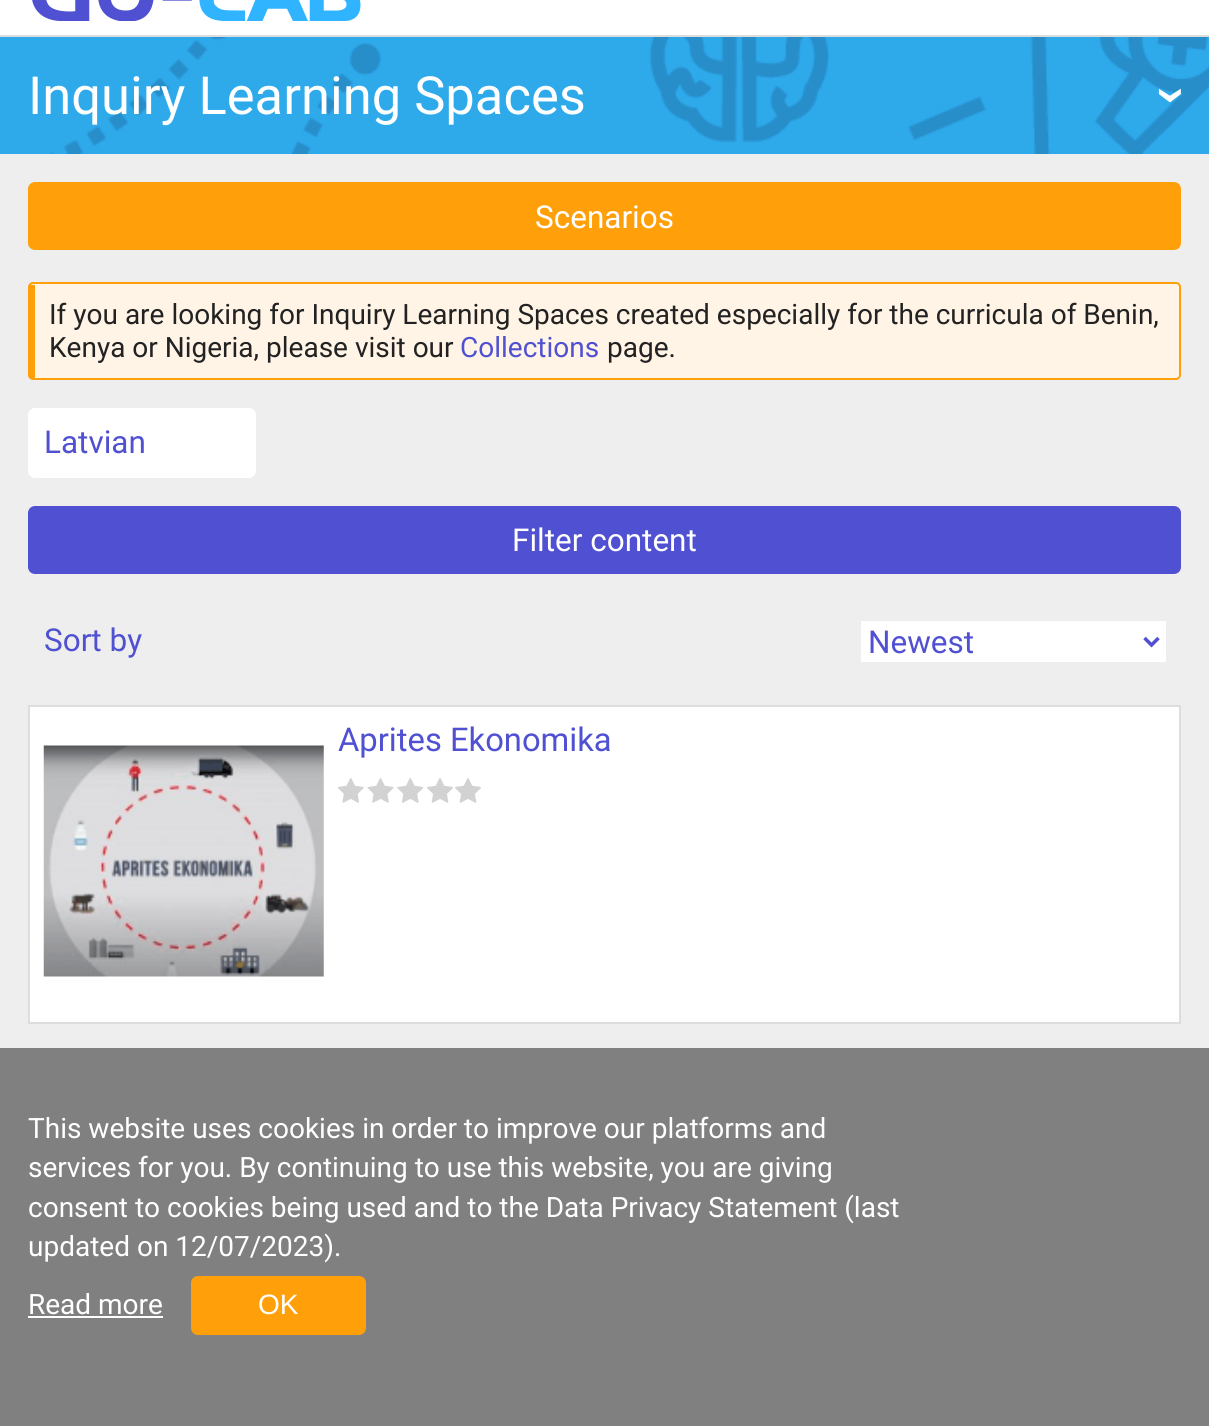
#include <cairo/cairo.h>
#include <math.h>
#include <stddef.h>


static void rounded_rect(cairo_t *cr, double x, double y, double w, double h, double r) {
  cairo_new_sub_path(cr);
  cairo_arc(cr, x + w - r, y + h - r, r, 0, M_PI / 2);
  cairo_arc(cr, x + r, y + h - r, r, M_PI / 2, M_PI);
  cairo_arc(cr, x + r, y + r, r, M_PI, 1.5 * M_PI);
  cairo_arc(cr, x + w - r, y + r, r, 1.5 * M_PI, 2 * M_PI);
  cairo_close_path(cr);
}

static void draw_image(cairo_t *cr, const char *path, double x, double y, double w, double h) {
  cairo_surface_t *image = cairo_image_surface_create_from_png(path);
  cairo_save(cr);
  cairo_set_source_surface(cr, image, x, y);
  cairo_rectangle(cr, x, y, w, h);
  cairo_fill(cr);
  cairo_restore(cr);
  cairo_surface_destroy(image);
}

static void draw(cairo_t *cr) {
  cairo_set_source_rgb(cr, 238 / 255.0, 238 / 255.0, 238 / 255.0);
  cairo_paint(cr);
  cairo_set_source_rgb(cr, 1, 1, 1);
  cairo_rectangle(cr, 0, 0, 1209, 35);
  cairo_fill(cr);
  cairo_set_source_rgb(cr, 221 / 255.0, 221 / 255.0, 221 / 255.0);
  cairo_rectangle(cr, 0, 35, 1209, 2);
  cairo_fill(cr);
  draw_image(cr, "images/1.png", 32, 0, 329, 21);
  draw_image(cr, "images/2.png", 0, 37, 1209, 117);
  cairo_set_source_rgb(cr, 1, 160 / 255.0, 10 / 255.0);
  rounded_rect(cr, 28, 182, 1153, 68, 7);
  cairo_fill(cr);
  cairo_set_source_rgb(cr, 1, 244 / 255.0, 230 / 255.0);
  cairo_new_path(cr);
  cairo_move_to(cr, 35, 284);
  cairo_line_to(cr, 1176, 284);
  cairo_curve_to(cr, 1178, 284, 1180, 285, 1180, 287);
  cairo_line_to(cr, 1180, 374);
  cairo_curve_to(cr, 1180, 376, 1178, 378, 1176, 378);
  cairo_line_to(cr, 35, 378);
  cairo_close_path(cr);
  cairo_fill(cr);
  rounded_rect(cr, 29, 283, 1151, 96, 4);
  cairo_set_source_rgb(cr, 1, 160 / 255.0, 10 / 255.0);
  cairo_stroke(cr);
  cairo_rectangle(cr, 30, 285, 5, 93);
  cairo_fill(cr);
  cairo_set_source_rgb(cr, 1, 1, 1);
  rounded_rect(cr, 28, 408, 228, 70, 7);
  cairo_fill(cr);
  cairo_set_source_rgb(cr, 80 / 255.0, 80 / 255.0, 210 / 255.0);
  rounded_rect(cr, 28, 506, 1153, 68, 7);
  cairo_fill(cr);
  cairo_set_source_rgb(cr, 1, 1, 1);
  cairo_rectangle(cr, 861, 621, 305, 41);
  cairo_fill(cr);
  cairo_new_path(cr);
  cairo_move_to(cr, 1144.5, 638);
  cairo_line_to(cr, 1151.5, 645);
  cairo_line_to(cr, 1158.5, 638);
  cairo_set_source_rgb(cr, 80 / 255.0, 80 / 255.0, 210 / 255.0);
  cairo_set_line_width(cr, 3.5);
  cairo_stroke(cr);
  cairo_set_source_rgb(cr, 1, 1, 1);
  cairo_rectangle(cr, 29, 706, 1151, 317);
  cairo_fill_preserve(cr);
  cairo_set_source_rgb(cr, 221 / 255.0, 221 / 255.0, 221 / 255.0);
  cairo_set_line_width(cr, 2);
  cairo_stroke(cr);
  draw_image(cr, "images/3.png", 43, 745, 281, 232);
  draw_image(cr, "images/4.png", 337, 778, 27, 25);
  draw_image(cr, "images/5.png", 367, 778, 27, 25);
  draw_image(cr, "images/6.png", 397, 778, 27, 25);
  draw_image(cr, "images/7.png", 427, 778, 26, 25);
  draw_image(cr, "images/7.png", 455, 778, 26, 25);
  cairo_set_source_rgb(cr, 128 / 255.0, 128 / 255.0, 128 / 255.0);
  cairo_rectangle(cr, 0, 1048, 1209, 378);
  cairo_fill(cr);
  cairo_set_source_rgb(cr, 1, 1, 1);
  cairo_rectangle(cr, 28, 1316, 135, 2);
  cairo_fill(cr);
  cairo_set_source_rgb(cr, 1, 160 / 255.0, 10 / 255.0);
  rounded_rect(cr, 191, 1276, 175, 59, 7);
  cairo_fill(cr);
  cairo_select_font_face(cr, "Roboto", CAIRO_FONT_SLANT_NORMAL, CAIRO_FONT_WEIGHT_NORMAL);
  cairo_set_font_size(cr, 52.5);
  cairo_set_source_rgb(cr, 1, 1, 1);
  cairo_move_to(cr, 28, 114);
  cairo_show_text(cr, "Inquiry Learning Spaces");
  cairo_select_font_face(cr, "Roboto", CAIRO_FONT_SLANT_NORMAL, CAIRO_FONT_WEIGHT_BOLD);
  cairo_save(cr);
  cairo_translate(cr, 1155, 87);
  cairo_rotate(cr, 90 * M_PI / 180);
  cairo_move_to(cr, 0, 0);
  cairo_show_text(cr, "›");
  cairo_restore(cr);
  cairo_select_font_face(cr, "Roboto", CAIRO_FONT_SLANT_NORMAL, CAIRO_FONT_WEIGHT_NORMAL);
  cairo_set_font_size(cr, 31.5);
  cairo_move_to(cr, 535, 228);
  cairo_show_text(cr, "Scenarios");
  cairo_set_font_size(cr, 28);
  cairo_set_source_rgb(cr, 34 / 255.0, 34 / 255.0, 34 / 255.0);
  cairo_move_to(cr, 49, 324);
  cairo_show_text(cr, "If you are looking for Inquiry Learning Spaces created especially for the curricula of Benin,");
  cairo_move_to(cr, 49, 357);
  cairo_show_text(cr, "Kenya or Nigeria, please visit our");
  cairo_set_source_rgb(cr, 80 / 255.0, 80 / 255.0, 210 / 255.0);
  cairo_move_to(cr, 460, 357);
  cairo_show_text(cr, "Collections");
  cairo_set_source_rgb(cr, 34 / 255.0, 34 / 255.0, 34 / 255.0);
  cairo_move_to(cr, 607, 357);
  cairo_show_text(cr, "page.");
  cairo_set_font_size(cr, 31.5);
  cairo_set_source_rgb(cr, 80 / 255.0, 80 / 255.0, 210 / 255.0);
  cairo_move_to(cr, 44, 453);
  cairo_show_text(cr, "Latvian");
  cairo_set_source_rgb(cr, 1, 1, 1);
  cairo_move_to(cr, 512, 551);
  cairo_show_text(cr, "Filter content");
  cairo_set_source_rgb(cr, 80 / 255.0, 80 / 255.0, 210 / 255.0);
  cairo_move_to(cr, 44, 651);
  cairo_show_text(cr, "Sort by");
  cairo_move_to(cr, 868, 653);
  cairo_show_text(cr, "Newest");
  cairo_set_font_size(cr, 32.75);
  cairo_move_to(cr, 338, 751);
  cairo_show_text(cr, "Aprites Ekonomika");
  cairo_set_font_size(cr, 28);
  cairo_set_source_rgb(cr, 1, 1, 1);
  cairo_move_to(cr, 28, 1138);
  cairo_show_text(cr, "This website uses cookies in order to improve our platforms and");
  cairo_move_to(cr, 28, 1177);
  cairo_show_text(cr, "services for you. By continuing to use this website, you are giving");
  cairo_move_to(cr, 28, 1217);
  cairo_show_text(cr, "consent to cookies being used and to the Data Privacy Statement (last");
  cairo_move_to(cr, 28, 1256);
  cairo_show_text(cr, "updated on 12/07/2023).");
  cairo_move_to(cr, 28, 1314);
  cairo_show_text(cr, "Read more");
  cairo_select_font_face(cr, "Liberation Sans", CAIRO_FONT_SLANT_NORMAL, CAIRO_FONT_WEIGHT_NORMAL);
  cairo_move_to(cr, 258, 1314);
  cairo_show_text(cr, "OK");
}

int main(void) {
  cairo_surface_t *surface = cairo_image_surface_create(CAIRO_FORMAT_RGB24, 1209, 1426);
  cairo_t *cr = cairo_create(surface);
  cairo_font_options_t *options = cairo_font_options_create();
  cairo_font_options_set_hint_metrics(options, CAIRO_HINT_METRICS_OFF);
  cairo_font_options_set_hint_style(options, CAIRO_HINT_STYLE_NONE);
  cairo_set_font_options(cr, options);
  cairo_set_miter_limit(cr, 4);
  draw(cr);
  cairo_surface_write_to_png(surface, "out.png");
  cairo_font_options_destroy(options);
  cairo_destroy(cr);
  cairo_surface_destroy(surface);
  return 0;
}
